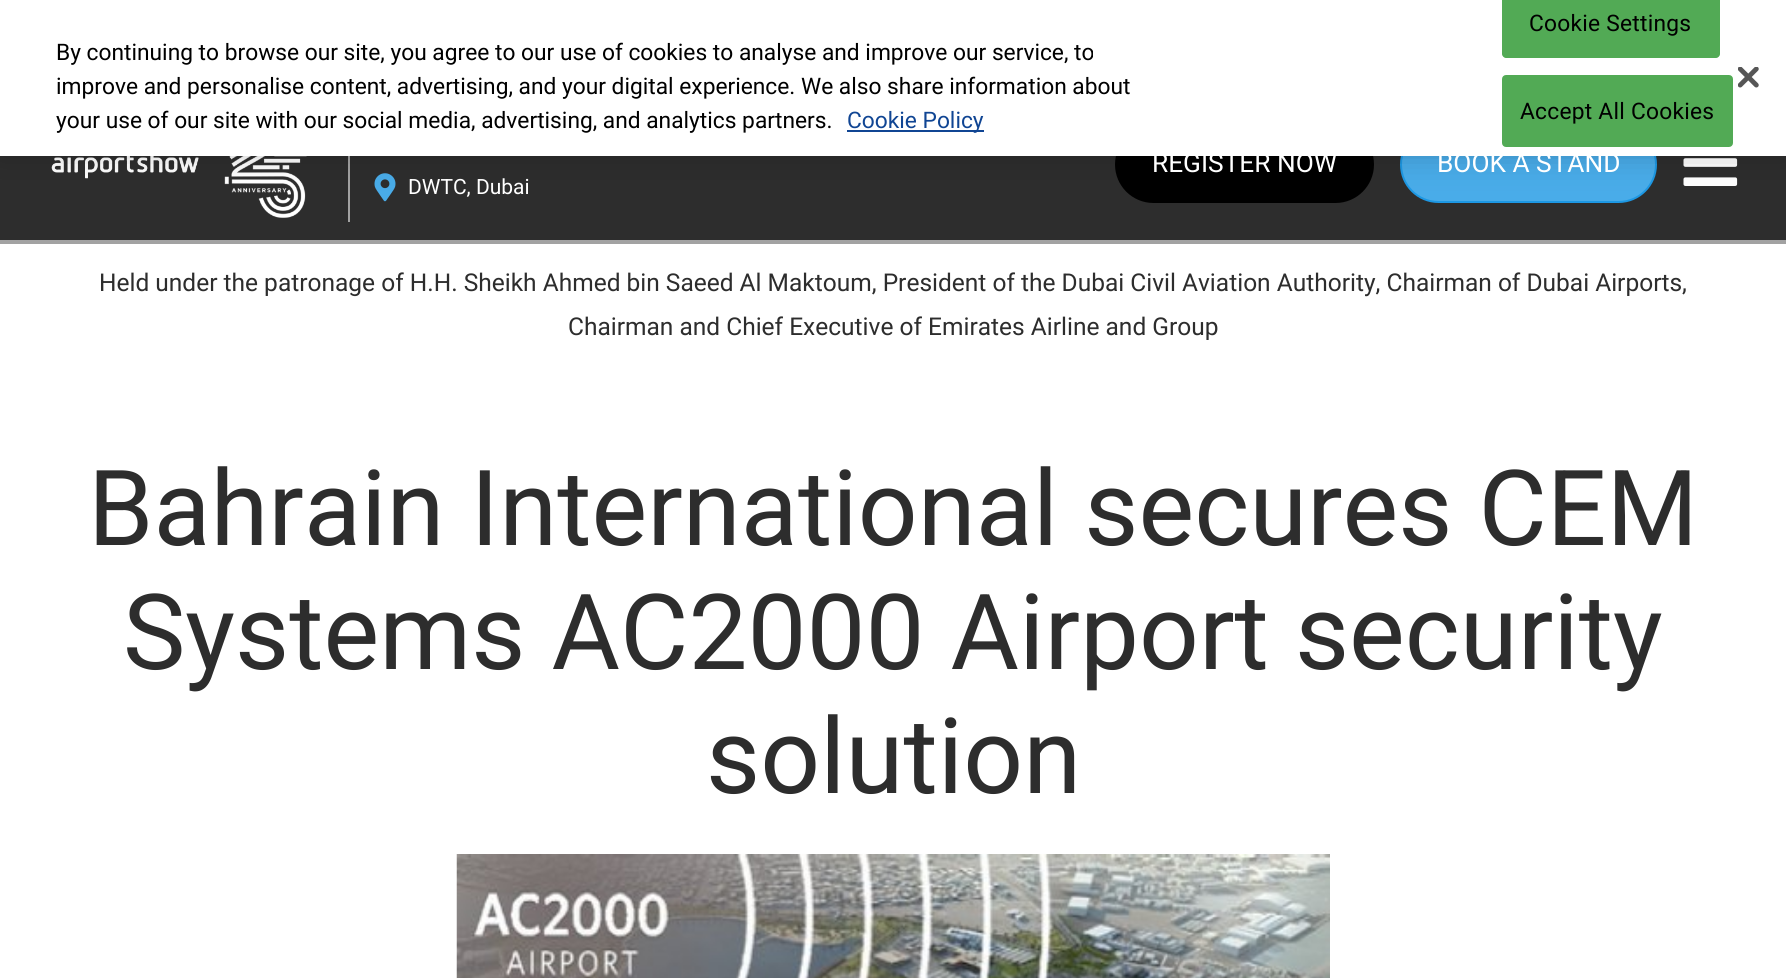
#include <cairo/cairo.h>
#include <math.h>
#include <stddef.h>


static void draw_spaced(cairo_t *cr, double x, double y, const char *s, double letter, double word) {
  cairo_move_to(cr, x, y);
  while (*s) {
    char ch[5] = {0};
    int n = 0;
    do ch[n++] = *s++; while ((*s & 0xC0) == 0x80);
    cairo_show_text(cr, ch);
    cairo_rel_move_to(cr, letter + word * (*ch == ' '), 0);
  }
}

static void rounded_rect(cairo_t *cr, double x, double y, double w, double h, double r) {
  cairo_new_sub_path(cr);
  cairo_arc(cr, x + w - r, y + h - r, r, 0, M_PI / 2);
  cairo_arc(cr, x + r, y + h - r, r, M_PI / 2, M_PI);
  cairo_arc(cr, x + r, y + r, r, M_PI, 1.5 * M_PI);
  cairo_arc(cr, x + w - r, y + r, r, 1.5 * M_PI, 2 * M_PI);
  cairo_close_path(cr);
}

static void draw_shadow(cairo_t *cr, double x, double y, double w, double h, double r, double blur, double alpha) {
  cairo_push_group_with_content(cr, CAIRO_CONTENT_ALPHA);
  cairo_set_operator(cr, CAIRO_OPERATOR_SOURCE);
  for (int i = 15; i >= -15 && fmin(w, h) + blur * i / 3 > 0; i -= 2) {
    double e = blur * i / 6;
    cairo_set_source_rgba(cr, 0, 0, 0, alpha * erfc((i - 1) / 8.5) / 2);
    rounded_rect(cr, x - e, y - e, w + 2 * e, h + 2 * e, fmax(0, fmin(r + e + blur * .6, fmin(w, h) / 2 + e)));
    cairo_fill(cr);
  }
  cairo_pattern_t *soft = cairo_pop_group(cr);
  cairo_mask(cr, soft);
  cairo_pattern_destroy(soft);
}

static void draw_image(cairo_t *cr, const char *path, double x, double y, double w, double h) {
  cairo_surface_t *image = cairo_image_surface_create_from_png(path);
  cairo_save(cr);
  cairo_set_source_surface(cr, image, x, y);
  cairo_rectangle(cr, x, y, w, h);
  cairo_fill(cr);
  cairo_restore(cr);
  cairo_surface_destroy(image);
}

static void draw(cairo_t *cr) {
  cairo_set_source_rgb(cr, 1, 1, 1);
  cairo_paint(cr);
  cairo_set_source_rgb(cr, 45 / 255.0, 45 / 255.0, 45 / 255.0);
  cairo_rectangle(cr, 0, 156, 1786, 84);
  cairo_fill(cr);
  cairo_set_source_rgb(cr, 0, 0, 0);
  rounded_rect(cr, 1116, 127, 257, 75, 37.5);
  cairo_fill_preserve(cr);
  cairo_stroke(cr);
  cairo_set_source_rgb(cr, 73 / 255.0, 172 / 255.0, 233 / 255.0);
  rounded_rect(cr, 1401, 127, 255, 75, 37.5);
  cairo_fill_preserve(cr);
  cairo_set_source_rgb(cr, 29 / 255.0, 152 / 255.0, 228 / 255.0);
  cairo_stroke(cr);
  draw_image(cr, "images/2.png", 1683, 158, 55, 28);
  draw_image(cr, "images/3.png", 51, 156, 148, 23);
  draw_image(cr, "images/4.png", 224, 156, 83, 62);
  cairo_set_source_rgb(cr, 162 / 255.0, 162 / 255.0, 162 / 255.0);
  cairo_rectangle(cr, 348, 156, 2, 66);
  cairo_fill(cr);
  draw_image(cr, "images/5.png", 374, 173, 22, 29);
  cairo_set_source_rgb(cr, 0, 0, 0);
  draw_shadow(cr, 0, 0, 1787, 156, 0, 16, 0.2);
  cairo_set_source_rgb(cr, 1, 1, 1);
  cairo_rectangle(cr, 0, 0, 1786, 156);
  cairo_fill(cr);
  cairo_set_source_rgb(cr, 16 / 255.0, 69 / 255.0, 147 / 255.0);
  cairo_rectangle(cr, 847, 130, 137, 2);
  cairo_fill(cr);
  cairo_set_source_rgb(cr, 82 / 255.0, 170 / 255.0, 85 / 255.0);
  cairo_new_path(cr);
  cairo_move_to(cr, 1502, 0);
  cairo_line_to(cr, 1720, 0);
  cairo_line_to(cr, 1720, 54);
  cairo_curve_to(cr, 1720, 56, 1718, 58, 1716, 58);
  cairo_line_to(cr, 1506, 58);
  cairo_curve_to(cr, 1504, 58, 1502, 56, 1502, 54);
  cairo_close_path(cr);
  cairo_fill(cr);
  rounded_rect(cr, 1503, 76, 229, 70, 3);
  cairo_fill_preserve(cr);
  cairo_stroke(cr);
  draw_image(cr, "images/1.png", 1738, 67, 21, 21);
  cairo_set_source_rgb(cr, 162 / 255.0, 162 / 255.0, 162 / 255.0);
  cairo_rectangle(cr, 0, 240, 1786, 4);
  cairo_fill(cr);
  draw_image(cr, "images/6.png", 456, 854, 874, 124);
  cairo_select_font_face(cr, "Roboto", CAIRO_FONT_SLANT_NORMAL, CAIRO_FONT_WEIGHT_NORMAL);
  cairo_set_font_size(cr, 22.75);
  cairo_set_source_rgb(cr, 0, 0, 0);
  cairo_move_to(cr, 56, 60);
  cairo_show_text(cr, "By continuing to browse our site, you agree to our use of cookies to analyse and improve our service, to");
  cairo_move_to(cr, 56, 94);
  cairo_show_text(cr, "improve and personalise content, advertising, and your digital experience. We also share information about");
  cairo_move_to(cr, 56, 128);
  cairo_show_text(cr, "your use of our site with our social media, advertising, and analytics partners.");
  cairo_set_source_rgb(cr, 16 / 255.0, 69 / 255.0, 147 / 255.0);
  cairo_move_to(cr, 847, 128);
  cairo_show_text(cr, "Cookie Policy");
  cairo_set_source_rgb(cr, 0, 0, 0);
  draw_spaced(cr, 1529, 31, "Cookie Settings", 0.25, 0);
  draw_spaced(cr, 1520, 119, "Accept All Cookies", 0.25, 0);
  cairo_set_font_size(cr, 26.25);
  cairo_set_source_rgb(cr, 1, 1, 1);
  cairo_move_to(cr, 1152, 172);
  cairo_show_text(cr, "REGISTER NOW");
  cairo_move_to(cr, 1437, 172);
  cairo_show_text(cr, "BOOK A STAND");
  cairo_set_font_size(cr, 21);
  cairo_move_to(cr, 408, 194);
  cairo_show_text(cr, "DWTC, Dubai");
  cairo_set_font_size(cr, 24.5);
  cairo_set_source_rgb(cr, 45 / 255.0, 45 / 255.0, 45 / 255.0);
  cairo_move_to(cr, 99, 291);
  cairo_show_text(cr, "Held under the patronage of H.H. Sheikh Ahmed bin Saeed Al Maktoum, President of the Dubai Civil Aviation Authority, Chairman of Dubai Airports,");
  cairo_move_to(cr, 568, 335);
  cairo_show_text(cr, "Chairman and Chief Executive of Emirates Airline and Group");
  cairo_set_font_size(cr, 105);
  cairo_move_to(cr, 88, 545);
  cairo_show_text(cr, "Bahrain International secures CEM");
  cairo_move_to(cr, 123, 669);
  cairo_show_text(cr, "Systems AC2000 Airport security");
  cairo_move_to(cr, 706, 793);
  cairo_show_text(cr, "solution");
}

int main(void) {
  cairo_surface_t *surface = cairo_image_surface_create(CAIRO_FORMAT_RGB24, 1786, 978);
  cairo_t *cr = cairo_create(surface);
  cairo_font_options_t *options = cairo_font_options_create();
  cairo_font_options_set_hint_metrics(options, CAIRO_HINT_METRICS_OFF);
  cairo_font_options_set_hint_style(options, CAIRO_HINT_STYLE_NONE);
  cairo_set_font_options(cr, options);
  cairo_set_miter_limit(cr, 4);
  draw(cr);
  cairo_surface_write_to_png(surface, "out.png");
  cairo_font_options_destroy(options);
  cairo_destroy(cr);
  cairo_surface_destroy(surface);
  return 0;
}
